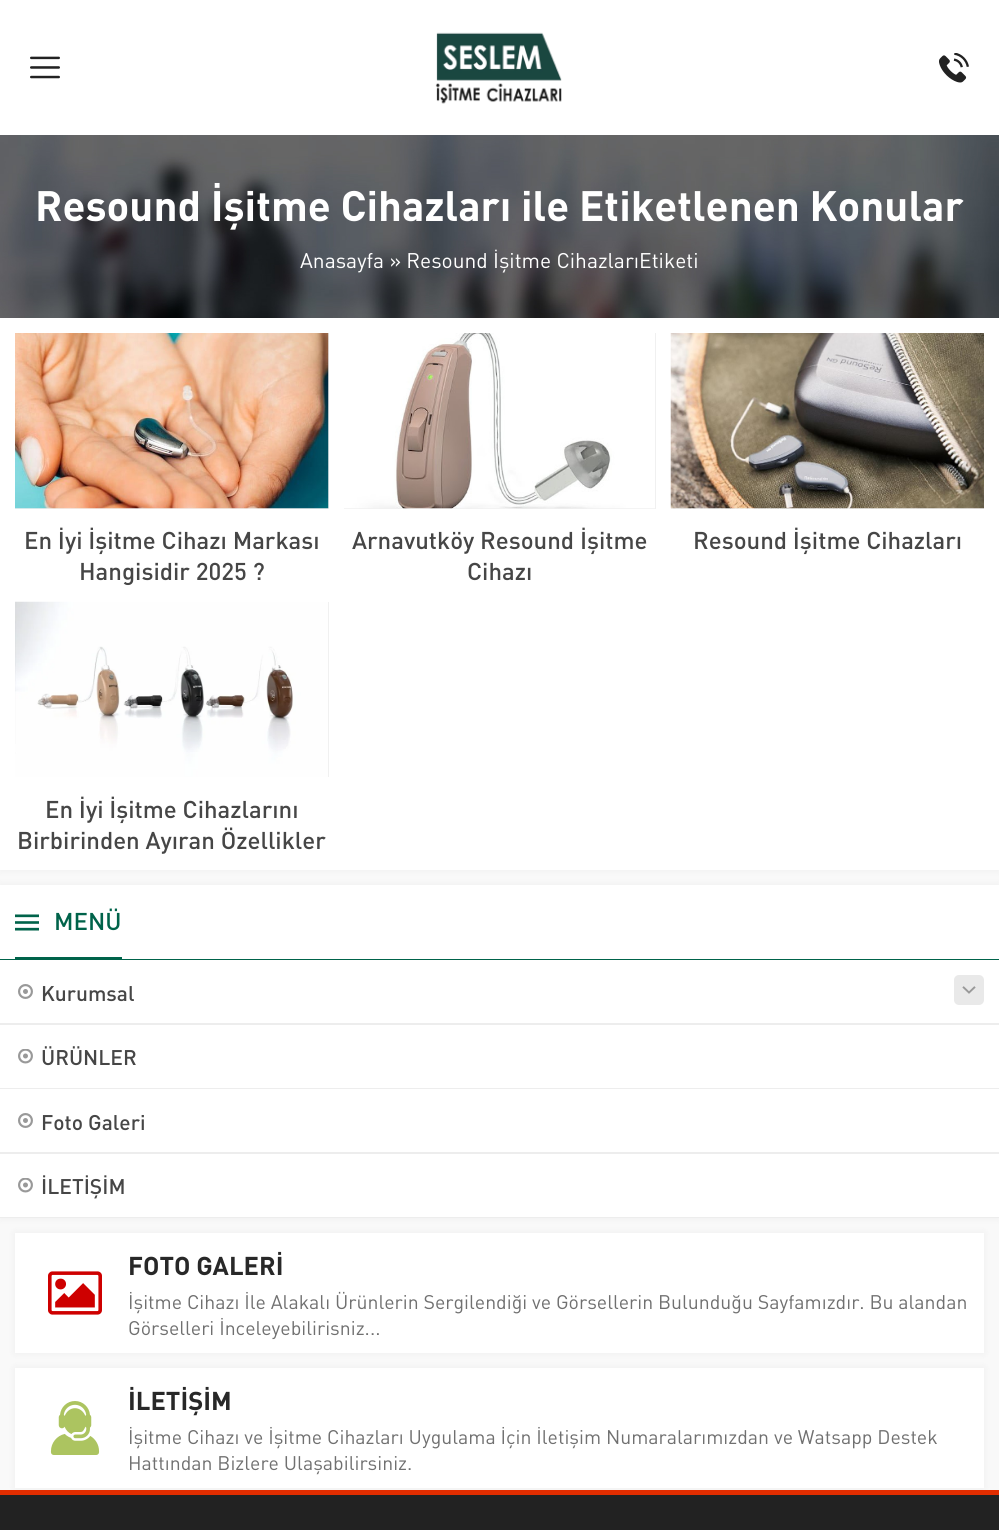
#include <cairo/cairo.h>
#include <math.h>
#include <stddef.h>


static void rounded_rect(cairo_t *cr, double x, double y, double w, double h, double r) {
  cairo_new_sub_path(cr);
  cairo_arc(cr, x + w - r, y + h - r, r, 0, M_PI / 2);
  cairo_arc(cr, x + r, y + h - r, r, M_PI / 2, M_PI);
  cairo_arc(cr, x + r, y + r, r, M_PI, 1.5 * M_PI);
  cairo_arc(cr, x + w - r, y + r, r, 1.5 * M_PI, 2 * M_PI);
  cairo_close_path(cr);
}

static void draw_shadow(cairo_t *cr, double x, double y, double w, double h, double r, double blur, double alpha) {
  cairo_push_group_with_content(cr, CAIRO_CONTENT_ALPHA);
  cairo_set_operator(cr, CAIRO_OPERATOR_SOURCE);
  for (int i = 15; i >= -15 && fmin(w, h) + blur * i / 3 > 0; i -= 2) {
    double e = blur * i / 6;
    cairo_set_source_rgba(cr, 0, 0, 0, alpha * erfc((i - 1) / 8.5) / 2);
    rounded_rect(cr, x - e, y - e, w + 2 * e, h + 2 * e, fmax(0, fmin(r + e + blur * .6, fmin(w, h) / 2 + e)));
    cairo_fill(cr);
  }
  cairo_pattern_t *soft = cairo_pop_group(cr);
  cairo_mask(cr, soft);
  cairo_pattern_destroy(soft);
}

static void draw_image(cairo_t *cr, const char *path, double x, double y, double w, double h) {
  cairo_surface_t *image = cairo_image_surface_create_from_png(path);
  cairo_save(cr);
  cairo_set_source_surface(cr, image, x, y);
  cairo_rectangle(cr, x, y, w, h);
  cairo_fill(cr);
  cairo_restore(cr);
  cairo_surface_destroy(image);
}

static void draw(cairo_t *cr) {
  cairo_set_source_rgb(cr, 249 / 255.0, 249 / 255.0, 249 / 255.0);
  cairo_paint(cr);
  cairo_set_source_rgb(cr, 1, 1, 1);
  cairo_rectangle(cr, 0, 0, 999, 135);
  cairo_fill(cr);
  draw_image(cr, "images/1.png", 30, 56, 30, 23);
  draw_image(cr, "images/2.png", 435, 32, 127, 72);
  draw_image(cr, "images/3.png", 939, 53, 30, 30);
  draw_image(cr, "images/4.png", 0, 135, 999, 183);
  cairo_save(cr);
  cairo_rectangle(cr, 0, 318, 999, 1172);
  cairo_clip(cr);
  cairo_set_source_rgb(cr, 0, 0, 0);
  draw_shadow(cr, 0, 318, 999, 552, 0, 4, 0.05);
  cairo_restore(cr);
  cairo_rectangle(cr, 0, 318, 999, 552);
  cairo_fill(cr);
  cairo_set_source_rgb(cr, 240 / 255.0, 240 / 255.0, 240 / 255.0);
  cairo_rectangle(cr, 15, 333, 314, 176);
  cairo_fill(cr);
  draw_image(cr, "images/5.png", 15, 333, 314, 176);
  cairo_rectangle(cr, 344, 333, 312, 176);
  cairo_fill(cr);
  draw_image(cr, "images/6.png", 344, 333, 311, 176);
  cairo_rectangle(cr, 671, 508, 313, 1);
  cairo_fill(cr);
  draw_image(cr, "images/7.png", 670, 333, 314, 176);
  cairo_rectangle(cr, 328, 602, 1, 175);
  cairo_fill(cr);
  draw_image(cr, "images/8.png", 15, 601, 313, 176);
  cairo_set_source_rgb(cr, 0, 0, 0);
  draw_shadow(cr, 0, 885, 999, 333, 0, 4, 0.05);
  cairo_set_source_rgb(cr, 1, 1, 1);
  cairo_rectangle(cr, 0, 885, 999, 332);
  cairo_fill(cr);
  draw_image(cr, "images/9.png", 15, 914, 24, 17);
  cairo_set_source_rgb(cr, 0, 99 / 255.0, 74 / 255.0);
  cairo_rectangle(cr, 15, 957, 107, 2);
  cairo_fill(cr);
  cairo_rectangle(cr, 0, 959, 999, 1);
  cairo_fill(cr);
  cairo_set_source_rgb(cr, 237 / 255.0, 237 / 255.0, 237 / 255.0);
  cairo_rectangle(cr, 0, 1023, 999, 2);
  cairo_fill(cr);
  draw_image(cr, "images/10.png", 18, 984, 15, 15);
  cairo_set_source_rgb(cr, 233 / 255.0, 233 / 255.0, 233 / 255.0);
  rounded_rect(cr, 954, 975, 30, 30, 5);
  cairo_fill(cr);
  draw_image(cr, "images/11.png", 962, 986, 14, 8);
  cairo_set_source_rgb(cr, 237 / 255.0, 237 / 255.0, 237 / 255.0);
  cairo_rectangle(cr, 0, 1088, 999, 1);
  cairo_fill(cr);
  draw_image(cr, "images/12.png", 18, 1049, 15, 15);
  cairo_rectangle(cr, 0, 1152, 999, 2);
  cairo_fill(cr);
  draw_image(cr, "images/10.png", 18, 1113, 15, 15);
  cairo_rectangle(cr, 0, 1217, 999, 1);
  cairo_fill(cr);
  draw_image(cr, "images/12.png", 18, 1178, 15, 15);
  cairo_set_source_rgb(cr, 0, 0, 0);
  draw_shadow(cr, 15, 1233, 969, 120, 0, 4, 0.05);
  cairo_set_source_rgb(cr, 1, 1, 1);
  cairo_rectangle(cr, 15, 1233, 969, 120);
  cairo_fill(cr);
  draw_image(cr, "images/13.png", 48, 1271, 54, 44);
  cairo_set_source_rgb(cr, 0, 0, 0);
  draw_shadow(cr, 15, 1368, 969, 120, 0, 4, 0.05);
  cairo_set_source_rgb(cr, 1, 1, 1);
  cairo_rectangle(cr, 15, 1368, 969, 120);
  cairo_fill(cr);
  draw_image(cr, "images/14.png", 50, 1401, 50, 54);
  cairo_set_source_rgb(cr, 34 / 255.0, 34 / 255.0, 34 / 255.0);
  cairo_rectangle(cr, 0, 1495, 999, 35);
  cairo_fill(cr);
  cairo_set_source_rgb(cr, 226 / 255.0, 45 / 255.0, 0);
  cairo_rectangle(cr, 0, 1490, 999, 5);
  cairo_fill(cr);
  cairo_select_font_face(cr, "DIN", CAIRO_FONT_SLANT_NORMAL, CAIRO_FONT_WEIGHT_BOLD);
  cairo_set_font_size(cr, 42);
  cairo_set_source_rgb(cr, 1, 1, 1);
  cairo_move_to(cr, 35, 221);
  cairo_show_text(cr, "Resound İşitme Cihazları ile Etiketlenen Konular");
  cairo_select_font_face(cr, "DIN", CAIRO_FONT_SLANT_NORMAL, CAIRO_FONT_WEIGHT_NORMAL);
  cairo_set_font_size(cr, 21);
  cairo_move_to(cr, 300, 268);
  cairo_show_text(cr, "Anasayfa » Resound İşitme CihazlarıEtiketi");
  cairo_select_font_face(cr, "DIN Medium", CAIRO_FONT_SLANT_NORMAL, CAIRO_FONT_WEIGHT_NORMAL);
  cairo_set_font_size(cr, 24);
  cairo_set_source_rgb(cr, 70 / 255.0, 70 / 255.0, 70 / 255.0);
  cairo_move_to(cr, 24, 549);
  cairo_show_text(cr, "En İyi İşitme Cihazı Markası");
  cairo_move_to(cr, 79, 580);
  cairo_show_text(cr, "Hangisidir 2025 ?");
  cairo_move_to(cr, 352, 549);
  cairo_show_text(cr, "Arnavutköy Resound İşitme");
  cairo_move_to(cr, 467, 580);
  cairo_show_text(cr, "Cihazı");
  cairo_move_to(cr, 693, 549);
  cairo_show_text(cr, "Resound İşitme Cihazları");
  cairo_move_to(cr, 45, 818);
  cairo_show_text(cr, "En İyi İşitme Cihazlarını");
  cairo_move_to(cr, 17, 849);
  cairo_show_text(cr, "Birbirinden Ayıran Özellikler");
  cairo_set_source_rgb(cr, 0, 99 / 255.0, 74 / 255.0);
  cairo_move_to(cr, 54, 930);
  cairo_show_text(cr, "MENÜ");
  cairo_set_font_size(cr, 21);
  cairo_set_source_rgb(cr, 70 / 255.0, 70 / 255.0, 70 / 255.0);
  cairo_move_to(cr, 41, 1001);
  cairo_show_text(cr, "Kurumsal");
  cairo_move_to(cr, 41, 1065);
  cairo_show_text(cr, "ÜRÜNLER");
  cairo_move_to(cr, 41, 1130);
  cairo_show_text(cr, "Foto Galeri");
  cairo_move_to(cr, 41, 1194);
  cairo_show_text(cr, "İLETİŞİM");
  cairo_select_font_face(cr, "DIN", CAIRO_FONT_SLANT_NORMAL, CAIRO_FONT_WEIGHT_BOLD);
  cairo_set_font_size(cr, 25.5);
  cairo_set_source_rgb(cr, 40 / 255.0, 40 / 255.0, 40 / 255.0);
  cairo_move_to(cr, 128, 1275);
  cairo_show_text(cr, "FOTO GALERİ");
  cairo_select_font_face(cr, "DIN", CAIRO_FONT_SLANT_NORMAL, CAIRO_FONT_WEIGHT_NORMAL);
  cairo_set_font_size(cr, 19.5);
  cairo_set_source_rgb(cr, 112 / 255.0, 112 / 255.0, 112 / 255.0);
  cairo_move_to(cr, 128, 1309);
  cairo_show_text(cr, "İşitme Cihazı İle Alakalı Ürünlerin Sergilendiği ve Görsellerin Bulunduğu Sayfamızdır. Bu alandan");
  cairo_move_to(cr, 128, 1335);
  cairo_show_text(cr, "Görselleri İnceleyebilirisniz...");
  cairo_select_font_face(cr, "DIN", CAIRO_FONT_SLANT_NORMAL, CAIRO_FONT_WEIGHT_BOLD);
  cairo_set_font_size(cr, 25.5);
  cairo_set_source_rgb(cr, 40 / 255.0, 40 / 255.0, 40 / 255.0);
  cairo_move_to(cr, 128, 1410);
  cairo_show_text(cr, "İLETİŞİM");
  cairo_select_font_face(cr, "DIN", CAIRO_FONT_SLANT_NORMAL, CAIRO_FONT_WEIGHT_NORMAL);
  cairo_set_font_size(cr, 19.5);
  cairo_set_source_rgb(cr, 112 / 255.0, 112 / 255.0, 112 / 255.0);
  cairo_move_to(cr, 128, 1444);
  cairo_show_text(cr, "İşitme Cihazı ve İşitme Cihazları Uygulama İçin İletişim Numaralarımızdan ve Watsapp Destek");
  cairo_move_to(cr, 128, 1470);
  cairo_show_text(cr, "Hattından Bizlere Ulaşabilirsiniz.");
}

int main(void) {
  cairo_surface_t *surface = cairo_image_surface_create(CAIRO_FORMAT_RGB24, 999, 1530);
  cairo_t *cr = cairo_create(surface);
  cairo_font_options_t *options = cairo_font_options_create();
  cairo_font_options_set_hint_metrics(options, CAIRO_HINT_METRICS_OFF);
  cairo_font_options_set_hint_style(options, CAIRO_HINT_STYLE_NONE);
  cairo_set_font_options(cr, options);
  cairo_set_miter_limit(cr, 4);
  draw(cr);
  cairo_surface_write_to_png(surface, "out.png");
  cairo_font_options_destroy(options);
  cairo_destroy(cr);
  cairo_surface_destroy(surface);
  return 0;
}
